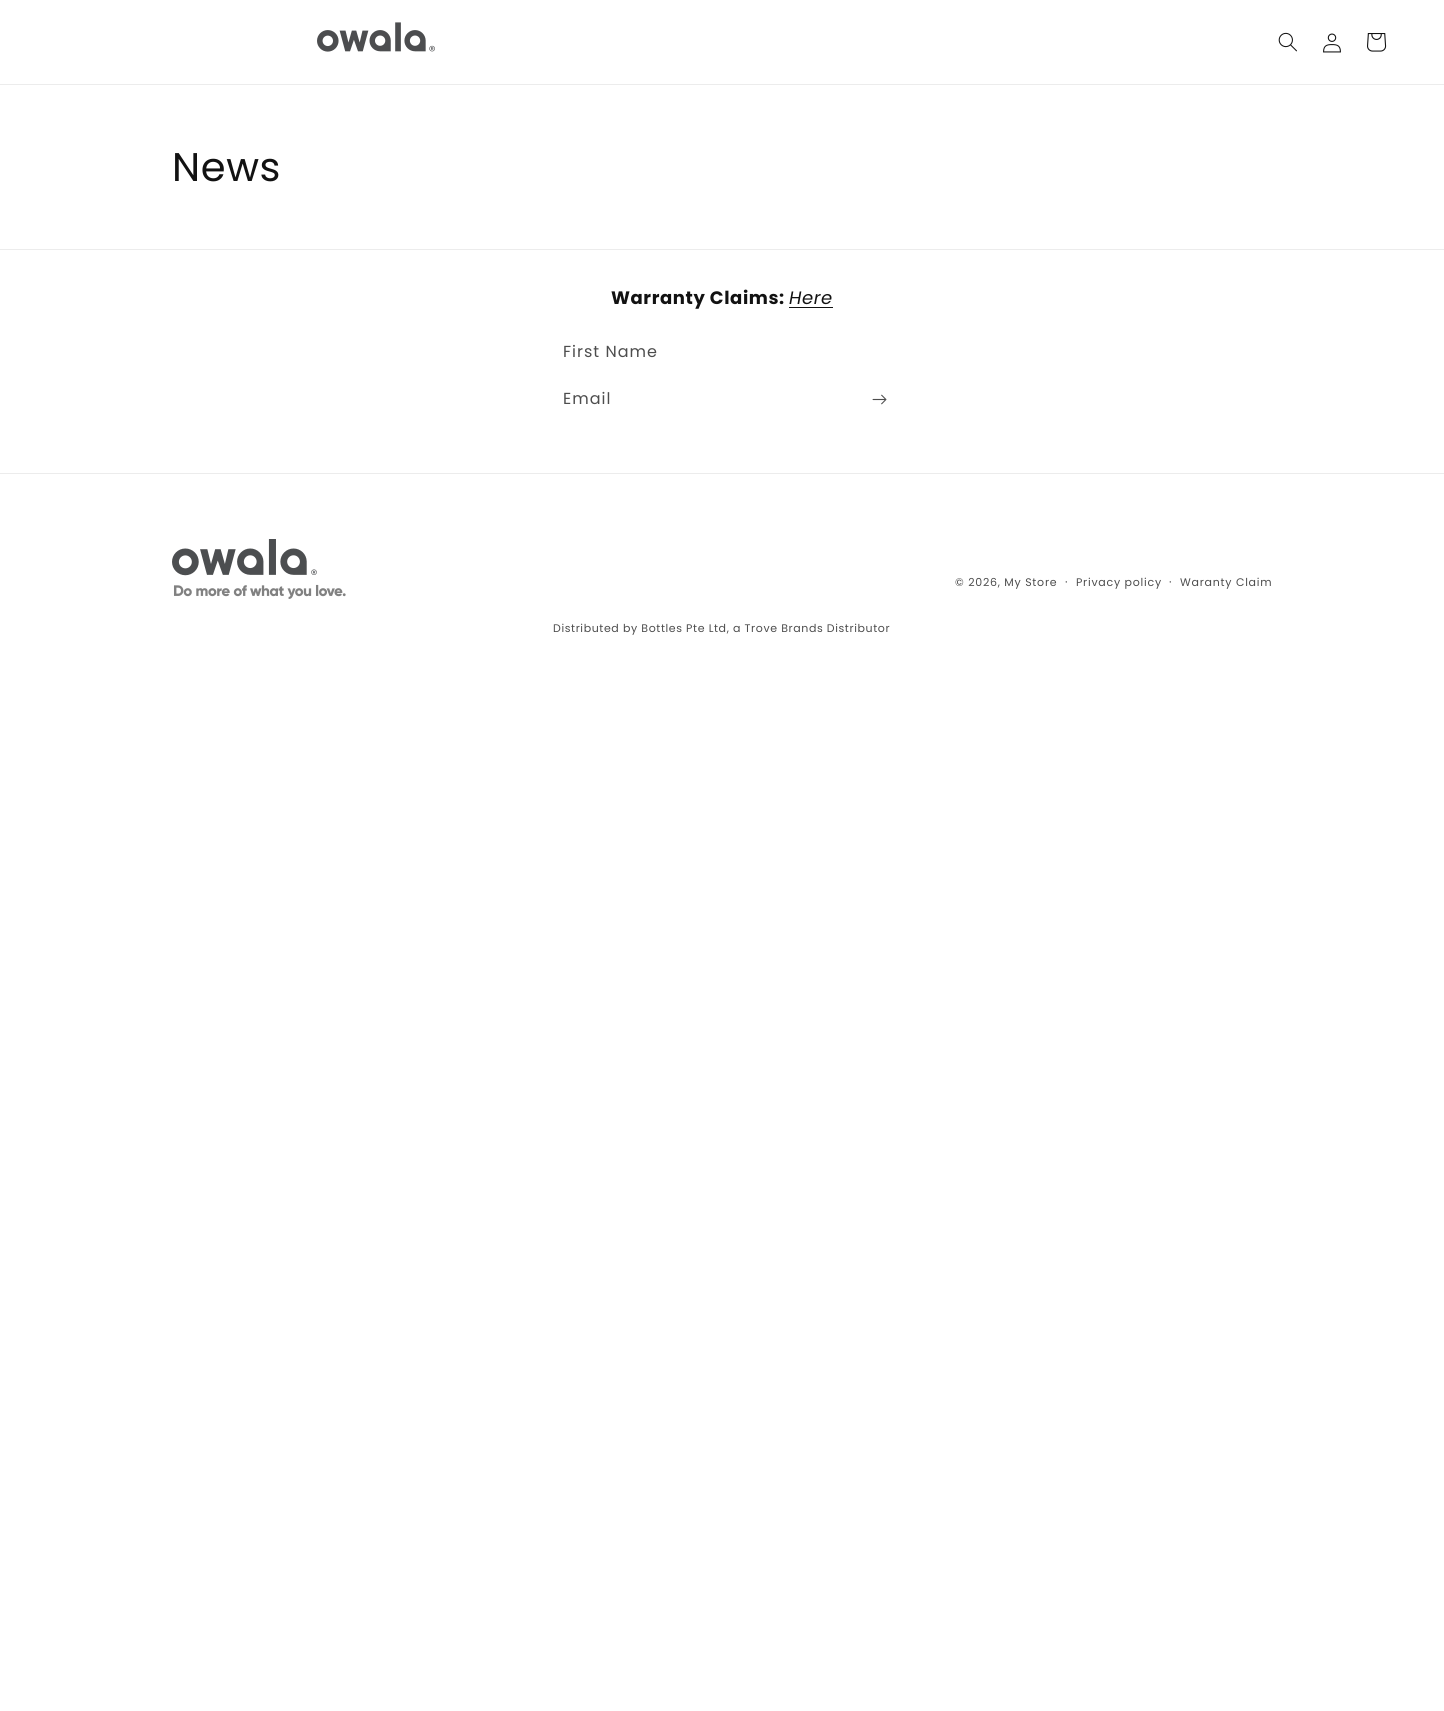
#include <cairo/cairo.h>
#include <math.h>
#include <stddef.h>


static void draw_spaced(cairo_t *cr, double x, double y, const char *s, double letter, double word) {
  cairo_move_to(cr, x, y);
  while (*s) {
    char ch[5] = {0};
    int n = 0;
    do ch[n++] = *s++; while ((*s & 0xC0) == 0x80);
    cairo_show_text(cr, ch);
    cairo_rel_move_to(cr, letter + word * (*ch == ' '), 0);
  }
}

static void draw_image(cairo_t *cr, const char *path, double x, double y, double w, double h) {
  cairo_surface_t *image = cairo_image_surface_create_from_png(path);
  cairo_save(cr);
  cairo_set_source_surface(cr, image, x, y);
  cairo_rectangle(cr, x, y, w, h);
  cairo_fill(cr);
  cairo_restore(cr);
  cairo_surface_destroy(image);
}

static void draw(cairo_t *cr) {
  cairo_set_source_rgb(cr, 1, 1, 1);
  cairo_paint(cr);
  cairo_set_source_rgb(cr, 236 / 255.0, 236 / 255.0, 236 / 255.0);
  cairo_rectangle(cr, 0, 84, 1444, 1);
  cairo_fill(cr);
  draw_image(cr, "images/1.png", 317, 22, 118, 30);
  draw_image(cr, "images/2.png", 1278, 32, 19, 20);
  draw_image(cr, "images/3.png", 1323, 33, 18, 20);
  draw_image(cr, "images/4.png", 1367, 33, 20, 19);
  cairo_rectangle(cr, 0, 249, 1444, 1);
  cairo_fill(cr);
  cairo_set_source_rgb(cr, 18 / 255.0, 18 / 255.0, 18 / 255.0);
  cairo_rectangle(cr, 789, 307, 44, 1);
  cairo_fill(cr);
  draw_image(cr, "images/5.png", 872, 394, 15, 11);
  cairo_set_source_rgb(cr, 236 / 255.0, 236 / 255.0, 236 / 255.0);
  cairo_rectangle(cr, 0, 473, 1444, 1);
  cairo_fill(cr);
  draw_image(cr, "images/6.png", 172, 539, 174, 60);
  cairo_select_font_face(cr, "Poppins", CAIRO_FONT_SLANT_NORMAL, CAIRO_FONT_WEIGHT_NORMAL);
  cairo_set_font_size(cr, 40);
  cairo_set_source_rgb(cr, 18 / 255.0, 18 / 255.0, 18 / 255.0);
  draw_spaced(cr, 172, 181, "News", 0.6, 0);
  cairo_select_font_face(cr, "Poppins", CAIRO_FONT_SLANT_NORMAL, CAIRO_FONT_WEIGHT_BOLD);
  cairo_set_font_size(cr, 18);
  draw_spaced(cr, 611, 304, "Warranty Claims:", 0.6, 0);
  cairo_select_font_face(cr, "Poppins", CAIRO_FONT_SLANT_ITALIC, CAIRO_FONT_WEIGHT_NORMAL);
  draw_spaced(cr, 789, 304, "Here", 0.6, 0);
  cairo_select_font_face(cr, "Poppins", CAIRO_FONT_SLANT_NORMAL, CAIRO_FONT_WEIGHT_NORMAL);
  cairo_set_font_size(cr, 16);
  cairo_set_source_rgb(cr, 77 / 255.0, 77 / 255.0, 77 / 255.0);
  draw_spaced(cr, 563, 357, "First Name", 1, 0);
  draw_spaced(cr, 563, 404, "Email", 1, 0);
  cairo_set_font_size(cr, 11);
  draw_spaced(cr, 955, 586, "© 2026, My Store", 0.75, 0);
  cairo_set_font_size(cr, 12);
  draw_spaced(cr, 1065, 586, "·", 0.75, 0);
  cairo_set_font_size(cr, 11);
  draw_spaced(cr, 1076, 586, "Privacy policy", 0.75, 0);
  cairo_set_font_size(cr, 12);
  draw_spaced(cr, 1169, 586, "·", 0.75, 0);
  cairo_set_font_size(cr, 11);
  draw_spaced(cr, 1180, 586, "Waranty Claim", 0.75, 0);
  draw_spaced(cr, 553, 632, "Distributed by Bottles Pte Ltd, a Trove Brands Distributor", 0.6, 0);
}

int main(void) {
  cairo_surface_t *surface = cairo_image_surface_create(CAIRO_FORMAT_RGB24, 1444, 1711);
  cairo_t *cr = cairo_create(surface);
  cairo_font_options_t *options = cairo_font_options_create();
  cairo_font_options_set_hint_metrics(options, CAIRO_HINT_METRICS_OFF);
  cairo_font_options_set_hint_style(options, CAIRO_HINT_STYLE_NONE);
  cairo_set_font_options(cr, options);
  cairo_set_miter_limit(cr, 4);
  draw(cr);
  cairo_surface_write_to_png(surface, "out.png");
  cairo_font_options_destroy(options);
  cairo_destroy(cr);
  cairo_surface_destroy(surface);
  return 0;
}
